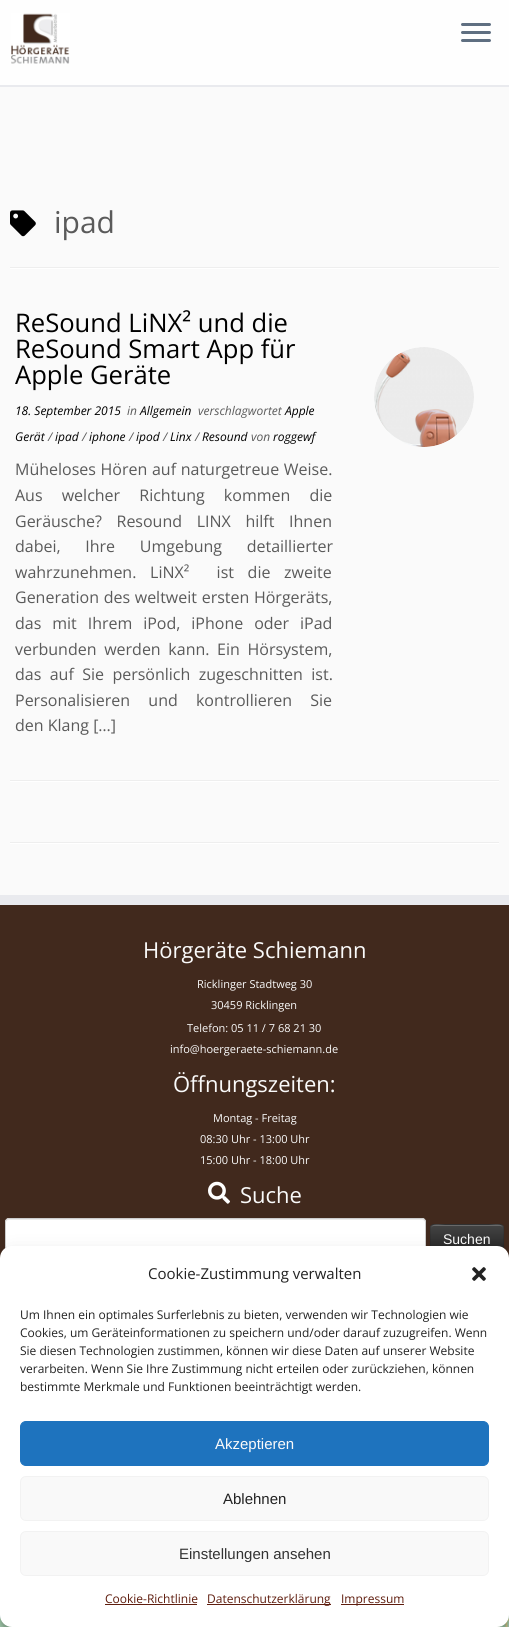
#include <cairo/cairo.h>
#include <math.h>
#include <stddef.h>


static void draw_spaced(cairo_t *cr, double x, double y, const char *s, double letter, double word) {
  cairo_move_to(cr, x, y);
  while (*s) {
    char ch[5] = {0};
    int n = 0;
    do ch[n++] = *s++; while ((*s & 0xC0) == 0x80);
    cairo_show_text(cr, ch);
    cairo_rel_move_to(cr, letter + word * (*ch == ' '), 0);
  }
}

static void rounded_rect(cairo_t *cr, double x, double y, double w, double h, double r) {
  cairo_new_sub_path(cr);
  cairo_arc(cr, x + w - r, y + h - r, r, 0, M_PI / 2);
  cairo_arc(cr, x + r, y + h - r, r, M_PI / 2, M_PI);
  cairo_arc(cr, x + r, y + r, r, M_PI, 1.5 * M_PI);
  cairo_arc(cr, x + w - r, y + r, r, 1.5 * M_PI, 2 * M_PI);
  cairo_close_path(cr);
}

static void draw_shadow(cairo_t *cr, double x, double y, double w, double h, double r, double blur, double alpha) {
  cairo_push_group_with_content(cr, CAIRO_CONTENT_ALPHA);
  cairo_set_operator(cr, CAIRO_OPERATOR_SOURCE);
  for (int i = 15; i >= -15 && fmin(w, h) + blur * i / 3 > 0; i -= 2) {
    double e = blur * i / 6;
    cairo_set_source_rgba(cr, 0, 0, 0, alpha * erfc((i - 1) / 8.5) / 2);
    rounded_rect(cr, x - e, y - e, w + 2 * e, h + 2 * e, fmax(0, fmin(r + e + blur * .6, fmin(w, h) / 2 + e)));
    cairo_fill(cr);
  }
  cairo_pattern_t *soft = cairo_pop_group(cr);
  cairo_mask(cr, soft);
  cairo_pattern_destroy(soft);
}

static void draw_image(cairo_t *cr, const char *path, double x, double y, double w, double h) {
  cairo_surface_t *image = cairo_image_surface_create_from_png(path);
  cairo_save(cr);
  cairo_set_source_surface(cr, image, x, y);
  cairo_rectangle(cr, x, y, w, h);
  cairo_fill(cr);
  cairo_restore(cr);
  cairo_surface_destroy(image);
}

static void draw(cairo_t *cr) {
  cairo_pattern_t *gradient;
  cairo_set_source_rgb(cr, 250 / 255.0, 250 / 255.0, 250 / 255.0);
  cairo_paint(cr);
  cairo_set_source_rgb(cr, 254 / 255.0, 254 / 255.0, 254 / 255.0);
  cairo_rectangle(cr, 0, 0, 509, 85);
  cairo_fill(cr);
  cairo_set_source_rgb(cr, 233 / 255.0, 234 / 255.0, 238 / 255.0);
  cairo_rectangle(cr, 0, 85, 509, 2);
  cairo_fill(cr);
  draw_image(cr, "images/1.png", 11, 13, 59, 51);
  cairo_set_source_rgb(cr, 95 / 255.0, 111 / 255.0, 129 / 255.0);
  rounded_rect(cr, 461, 23, 30, 3, 1.5);
  cairo_fill(cr);
  rounded_rect(cr, 461, 31, 30, 3, 1.5);
  cairo_fill(cr);
  rounded_rect(cr, 461, 39, 30, 3, 1.5);
  cairo_fill(cr);
  draw_image(cr, "images/2.png", 10, 210, 26, 27);
  cairo_set_source_rgb(cr, 238 / 255.0, 238 / 255.0, 238 / 255.0);
  cairo_rectangle(cr, 10, 267, 489, 1);
  cairo_fill(cr);
  cairo_set_source_rgb(cr, 1, 1, 1);
  cairo_rectangle(cr, 10, 268, 489, 1);
  cairo_fill(cr);
  draw_image(cr, "images/3.png", 374, 347, 100, 100);
  cairo_set_source_rgb(cr, 238 / 255.0, 238 / 255.0, 238 / 255.0);
  cairo_rectangle(cr, 10, 780, 489, 1);
  cairo_fill(cr);
  cairo_set_source_rgb(cr, 1, 1, 1);
  cairo_rectangle(cr, 10, 781, 489, 1);
  cairo_fill(cr);
  cairo_set_source_rgb(cr, 238 / 255.0, 238 / 255.0, 238 / 255.0);
  cairo_rectangle(cr, 10, 842, 489, 1);
  cairo_fill(cr);
  cairo_set_source_rgb(cr, 1, 1, 1);
  cairo_rectangle(cr, 10, 843, 489, 1);
  cairo_fill(cr);
  cairo_set_source_rgb(cr, 65 / 255.0, 41 / 255.0, 29 / 255.0);
  cairo_rectangle(cr, 0, 905, 509, 353);
  cairo_fill(cr);
  cairo_set_source_rgb(cr, 233 / 255.0, 234 / 255.0, 238 / 255.0);
  cairo_rectangle(cr, 0, 895, 509, 10);
  cairo_fill(cr);
  draw_image(cr, "images/4.png", 208, 1181, 22, 23);
  cairo_set_source_rgb(cr, 1, 1, 1);
  rounded_rect(cr, 5, 1218, 421, 32, 4);
  cairo_fill(cr);
  cairo_set_source_rgb(cr, 236 / 255.0, 236 / 255.0, 236 / 255.0);
  cairo_new_path(cr);
  cairo_move_to(cr, 9, 1220);
  cairo_line_to(cr, 422, 1220);
  cairo_curve_to(cr, 424, 1220, 425, 1221, 425, 1223);
  cairo_curve_to(cr, 425, 1221, 424, 1219, 422, 1219);
  cairo_line_to(cr, 9, 1219);
  cairo_curve_to(cr, 7, 1219, 6, 1221, 6, 1223);
  cairo_curve_to(cr, 6, 1221, 7, 1220, 9, 1220);
  cairo_close_path(cr);
  cairo_fill(cr);
  rounded_rect(cr, 5.5, 1218.5, 420, 31, 3.5);
  cairo_set_source_rgb(cr, 204 / 255.0, 204 / 255.0, 204 / 255.0);
  cairo_set_line_width(cr, 1);
  cairo_stroke(cr);
  cairo_set_source_rgb(cr, 54 / 255.0, 54 / 255.0, 54 / 255.0);
  rounded_rect(cr, 430, 1224, 74, 30, 4);
  cairo_fill(cr);
  cairo_save(cr);
  rounded_rect(cr, 430, 1224, 74, 30, 4);
  cairo_clip(cr);
  gradient = cairo_pattern_create_linear(467, 1225, 467, 1253);
  cairo_pattern_add_color_stop_rgba(gradient, 0, 68 / 255.0, 68 / 255.0, 68 / 255.0, 1);
  cairo_pattern_add_color_stop_rgba(gradient, 1, 34 / 255.0, 34 / 255.0, 34 / 255.0, 1);
  cairo_set_source(cr, gradient);
  cairo_pattern_destroy(gradient);
  cairo_rectangle(cr, 430, 1225, 74, 24);
  cairo_fill(cr);
  cairo_restore(cr);
  cairo_set_source_rgba(cr, 1, 1, 1, 0.2);
  cairo_new_path(cr);
  cairo_move_to(cr, 434, 1226);
  cairo_line_to(cr, 500, 1226);
  cairo_curve_to(cr, 502, 1226, 503, 1227, 503, 1229);
  cairo_curve_to(cr, 503, 1222, 493, 1225, 489, 1225);
  cairo_line_to(cr, 445, 1225);
  cairo_curve_to(cr, 441, 1225, 431, 1222, 431, 1229);
  cairo_curve_to(cr, 431, 1227, 432, 1226, 434, 1226);
  cairo_close_path(cr);
  cairo_fill(cr);
  cairo_new_path(cr);
  cairo_move_to(cr, 431.5, 1252.5);
  cairo_curve_to(cr, 429.5, 1250.5, 430.5, 1242, 430.5, 1239);
  cairo_curve_to(cr, 430.5, 1222.5, 428, 1224.5, 445, 1224.5);
  cairo_line_to(cr, 489, 1224.5);
  cairo_curve_to(cr, 506, 1224.5, 503.5, 1222.5, 503.5, 1239);
  cairo_curve_to(cr, 503.5, 1242, 504.5, 1250.5, 502.5, 1252.5);
  cairo_set_source_rgba(cr, 0, 0, 0, 0.1);
  cairo_stroke(cr);
  draw_image(cr, "images/5.png", 0, 1615, 509, 12);
  cairo_set_source_rgb(cr, 0, 0, 0);
  draw_shadow(cr, 0, 1252, 509, 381, 12, 3, 0.23);
  draw_shadow(cr, 0, 1256, 509, 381, 12, 10, 0.19);
  cairo_set_source_rgb(cr, 1, 1, 1);
  rounded_rect(cr, 0, 1246, 509, 381, 12);
  cairo_fill(cr);
  draw_image(cr, "images/6.png", 472, 1267, 14, 14);
  cairo_set_source_rgb(cr, 30 / 255.0, 115 / 255.0, 190 / 255.0);
  rounded_rect(cr, 20.5, 1421.5, 468, 44, 5.5);
  cairo_fill_preserve(cr);
  cairo_stroke(cr);
  cairo_set_source_rgb(cr, 249 / 255.0, 249 / 255.0, 249 / 255.0);
  rounded_rect(cr, 20.5, 1476.5, 468, 44, 5.5);
  cairo_fill_preserve(cr);
  cairo_set_source_rgb(cr, 242 / 255.0, 242 / 255.0, 242 / 255.0);
  cairo_stroke(cr);
  cairo_set_source_rgb(cr, 249 / 255.0, 249 / 255.0, 249 / 255.0);
  rounded_rect(cr, 20.5, 1531.5, 468, 44, 5.5);
  cairo_fill_preserve(cr);
  cairo_set_source_rgb(cr, 242 / 255.0, 242 / 255.0, 242 / 255.0);
  cairo_stroke(cr);
  cairo_set_source_rgb(cr, 94 / 255.0, 28 / 255.0, 13 / 255.0);
  cairo_rectangle(cr, 105, 1604, 92, 1);
  cairo_fill(cr);
  cairo_rectangle(cr, 207, 1604, 124, 1);
  cairo_fill(cr);
  cairo_rectangle(cr, 341, 1604, 63, 1);
  cairo_fill(cr);
  cairo_select_font_face(cr, "Open Sans", CAIRO_FONT_SLANT_NORMAL, CAIRO_FONT_WEIGHT_NORMAL);
  cairo_set_font_size(cr, 30);
  cairo_set_source_rgb(cr, 90 / 255.0, 90 / 255.0, 90 / 255.0);
  cairo_move_to(cr, 54, 233);
  cairo_show_text(cr, "ipad");
  cairo_set_font_size(cr, 25.6);
  cairo_set_source_rgb(cr, 0, 0, 0);
  cairo_move_to(cr, 15, 332);
  cairo_show_text(cr, "ReSound LiNX² und die");
  cairo_move_to(cr, 15, 358);
  cairo_show_text(cr, "ReSound Smart App für");
  cairo_move_to(cr, 15, 384);
  cairo_show_text(cr, "Apple Geräte");
  cairo_select_font_face(cr, "Open Sans", CAIRO_FONT_SLANT_ITALIC, CAIRO_FONT_WEIGHT_NORMAL);
  cairo_set_font_size(cr, 12);
  cairo_move_to(cr, 15, 415);
  cairo_show_text(cr, "18. September 2015");
  cairo_set_source_rgb(cr, 90 / 255.0, 90 / 255.0, 90 / 255.0);
  cairo_move_to(cr, 127, 415);
  cairo_show_text(cr, "in");
  cairo_set_source_rgb(cr, 0, 0, 0);
  cairo_move_to(cr, 140, 415);
  cairo_show_text(cr, "Allgemein");
  cairo_set_source_rgb(cr, 90 / 255.0, 90 / 255.0, 90 / 255.0);
  cairo_move_to(cr, 198, 415);
  cairo_show_text(cr, "verschlagwortet");
  cairo_set_source_rgb(cr, 0, 0, 0);
  cairo_move_to(cr, 285, 415);
  cairo_show_text(cr, "Apple");
  cairo_move_to(cr, 15, 441);
  cairo_show_text(cr, "Gerät");
  cairo_set_source_rgb(cr, 90 / 255.0, 90 / 255.0, 90 / 255.0);
  cairo_move_to(cr, 48, 441);
  cairo_show_text(cr, "/");
  cairo_set_source_rgb(cr, 0, 0, 0);
  cairo_move_to(cr, 55, 441);
  cairo_show_text(cr, "ipad");
  cairo_set_source_rgb(cr, 90 / 255.0, 90 / 255.0, 90 / 255.0);
  cairo_move_to(cr, 82, 441);
  cairo_show_text(cr, "/");
  cairo_set_source_rgb(cr, 0, 0, 0);
  cairo_move_to(cr, 89, 441);
  cairo_show_text(cr, "iphone");
  cairo_set_source_rgb(cr, 90 / 255.0, 90 / 255.0, 90 / 255.0);
  cairo_move_to(cr, 129, 441);
  cairo_show_text(cr, "/");
  cairo_set_source_rgb(cr, 0, 0, 0);
  cairo_move_to(cr, 136, 441);
  cairo_show_text(cr, "ipod");
  cairo_set_source_rgb(cr, 90 / 255.0, 90 / 255.0, 90 / 255.0);
  cairo_move_to(cr, 163, 441);
  cairo_show_text(cr, "/");
  cairo_set_source_rgb(cr, 0, 0, 0);
  cairo_move_to(cr, 170, 441);
  cairo_show_text(cr, "Linx");
  cairo_set_source_rgb(cr, 90 / 255.0, 90 / 255.0, 90 / 255.0);
  cairo_move_to(cr, 195, 441);
  cairo_show_text(cr, "/");
  cairo_set_source_rgb(cr, 0, 0, 0);
  cairo_move_to(cr, 202, 441);
  cairo_show_text(cr, "Resound");
  cairo_set_source_rgb(cr, 90 / 255.0, 90 / 255.0, 90 / 255.0);
  cairo_move_to(cr, 251, 441);
  cairo_show_text(cr, "von");
  cairo_set_source_rgb(cr, 0, 0, 0);
  cairo_move_to(cr, 273, 441);
  cairo_show_text(cr, "roggewf");
  cairo_select_font_face(cr, "Open Sans", CAIRO_FONT_SLANT_NORMAL, CAIRO_FONT_WEIGHT_NORMAL);
  cairo_set_font_size(cr, 16);
  cairo_set_source_rgb(cr, 90 / 255.0, 90 / 255.0, 90 / 255.0);
  draw_spaced(cr, 15, 475, "Müheloses Hören auf naturgetreue Weise.", 0, 0.5);
  draw_spaced(cr, 15, 501, "Aus welcher Richtung kommen die", 0, 15);
  draw_spaced(cr, 15, 527, "Geräusche? Resound LINX hilft Ihnen", 0, 10.5);
  draw_spaced(cr, 15, 552, "dabei, Ihre Umgebung detaillierter", 0, 20.5);
  draw_spaced(cr, 15, 578, "wahrzunehmen. LiNX²  ist die zweite", 0, 9.5);
  draw_spaced(cr, 15, 603, "Generation des weltweit ersten Hörgeräts,", 0, 0.5);
  draw_spaced(cr, 15, 629, "das mit Ihrem iPod, iPhone oder iPad", 0, 6.75);
  draw_spaced(cr, 15, 655, "verbunden werden kann. Ein Hörsystem,", 0, 3.5);
  draw_spaced(cr, 15, 680, "das auf Sie persönlich zugeschnitten ist.", 0, 4.25);
  draw_spaced(cr, 15, 706, "Personalisieren und kontrollieren Sie", 0, 14);
  cairo_move_to(cr, 15, 731);
  cairo_show_text(cr, "den Klang […]");
  cairo_save(cr);
  cairo_rectangle(cr, 358, 299, 131, 200);
  cairo_clip(cr);
  cairo_arc(cr, 424, 397, 97, 0, 2 * M_PI);
  cairo_set_source_rgb(cr, 250 / 255.0, 250 / 255.0, 250 / 255.0);
  cairo_set_line_width(cr, 94);
  cairo_stroke(cr);
  cairo_arc(cr, 424, 397, 97, 0, 2 * M_PI);
  cairo_stroke(cr);
  cairo_restore(cr);
  cairo_set_font_size(cr, 22);
  cairo_set_source_rgb(cr, 250 / 255.0, 250 / 255.0, 250 / 255.0);
  cairo_move_to(cr, 143, 958);
  cairo_show_text(cr, "Hörgeräte Schiemann");
  cairo_set_font_size(cr, 11);
  cairo_move_to(cr, 197, 988);
  cairo_show_text(cr, "Ricklinger Stadtweg 30");
  cairo_move_to(cr, 211, 1009);
  cairo_show_text(cr, "30459 Ricklingen");
  cairo_move_to(cr, 187, 1032);
  cairo_show_text(cr, "Telefon: 05 11 / 7 68 21 30");
  cairo_move_to(cr, 170, 1053);
  cairo_show_text(cr, "info@hoergeraete-schiemann.de");
  cairo_set_font_size(cr, 22);
  cairo_move_to(cr, 173, 1092);
  cairo_show_text(cr, "Öffnungszeiten:");
  cairo_set_font_size(cr, 11);
  cairo_move_to(cr, 213, 1122);
  cairo_show_text(cr, "Montag - Freitag");
  cairo_move_to(cr, 200, 1143);
  cairo_show_text(cr, "08:30 Uhr - 13:00 Uhr");
  cairo_move_to(cr, 200, 1164);
  cairo_show_text(cr, "15:00 Uhr - 18:00 Uhr");
  cairo_set_font_size(cr, 22);
  cairo_move_to(cr, 240, 1203);
  cairo_show_text(cr, "Suche");
  cairo_select_font_face(cr, "Liberation Sans", CAIRO_FONT_SLANT_NORMAL, CAIRO_FONT_WEIGHT_NORMAL);
  cairo_set_font_size(cr, 14);
  cairo_move_to(cr, 443, 1244);
  cairo_show_text(cr, "Suchen");
  cairo_select_font_face(cr, "Open Sans", CAIRO_FONT_SLANT_NORMAL, CAIRO_FONT_WEIGHT_NORMAL);
  cairo_set_font_size(cr, 15);
  cairo_set_source_rgb(cr, 34 / 255.0, 34 / 255.0, 34 / 255.0);
  cairo_move_to(cr, 148, 1279);
  cairo_show_text(cr, "Cookie-Zustimmung verwalten");
  cairo_set_font_size(cr, 12);
  cairo_move_to(cr, 20, 1319);
  cairo_show_text(cr, "Um Ihnen ein optimales Surferlebnis zu bieten, verwenden wir Technologien wie");
  cairo_move_to(cr, 20, 1337);
  cairo_show_text(cr, "Cookies, um Geräteinformationen zu speichern und/oder darauf zuzugreifen. Wenn");
  cairo_move_to(cr, 20, 1355);
  cairo_show_text(cr, "Sie diesen Technologien zustimmen, können wir diese Daten auf unserer Website");
  cairo_move_to(cr, 20, 1373);
  cairo_show_text(cr, "verarbeiten. Wenn Sie Ihre Zustimmung nicht erteilen oder zurückziehen, können");
  cairo_move_to(cr, 20, 1391);
  cairo_show_text(cr, "bestimmte Merkmale und Funktionen beeinträchtigt werden.");
  cairo_select_font_face(cr, "Liberation Sans", CAIRO_FONT_SLANT_NORMAL, CAIRO_FONT_WEIGHT_NORMAL);
  cairo_set_font_size(cr, 15);
  cairo_set_source_rgb(cr, 250 / 255.0, 250 / 255.0, 250 / 255.0);
  cairo_move_to(cr, 215, 1449);
  cairo_show_text(cr, "Akzeptieren");
  cairo_set_source_rgb(cr, 34 / 255.0, 34 / 255.0, 34 / 255.0);
  cairo_move_to(cr, 223, 1504);
  cairo_show_text(cr, "Ablehnen");
  cairo_set_source_rgb(cr, 51 / 255.0, 51 / 255.0, 51 / 255.0);
  cairo_move_to(cr, 179, 1559);
  cairo_show_text(cr, "Einstellungen ansehen");
  cairo_select_font_face(cr, "Open Sans", CAIRO_FONT_SLANT_NORMAL, CAIRO_FONT_WEIGHT_NORMAL);
  cairo_set_font_size(cr, 12);
  cairo_set_source_rgb(cr, 94 / 255.0, 28 / 255.0, 13 / 255.0);
  cairo_move_to(cr, 105, 1603);
  cairo_show_text(cr, "Cookie-Richtlinie");
  cairo_move_to(cr, 207, 1603);
  cairo_show_text(cr, "Datenschutzerklärung");
  cairo_move_to(cr, 341, 1603);
  cairo_show_text(cr, "Impressum");
}

int main(void) {
  cairo_surface_t *surface = cairo_image_surface_create(CAIRO_FORMAT_RGB24, 509, 1627);
  cairo_t *cr = cairo_create(surface);
  cairo_font_options_t *options = cairo_font_options_create();
  cairo_font_options_set_hint_metrics(options, CAIRO_HINT_METRICS_OFF);
  cairo_font_options_set_hint_style(options, CAIRO_HINT_STYLE_NONE);
  cairo_set_font_options(cr, options);
  cairo_set_miter_limit(cr, 4);
  draw(cr);
  cairo_surface_write_to_png(surface, "out.png");
  cairo_font_options_destroy(options);
  cairo_destroy(cr);
  cairo_surface_destroy(surface);
  return 0;
}
